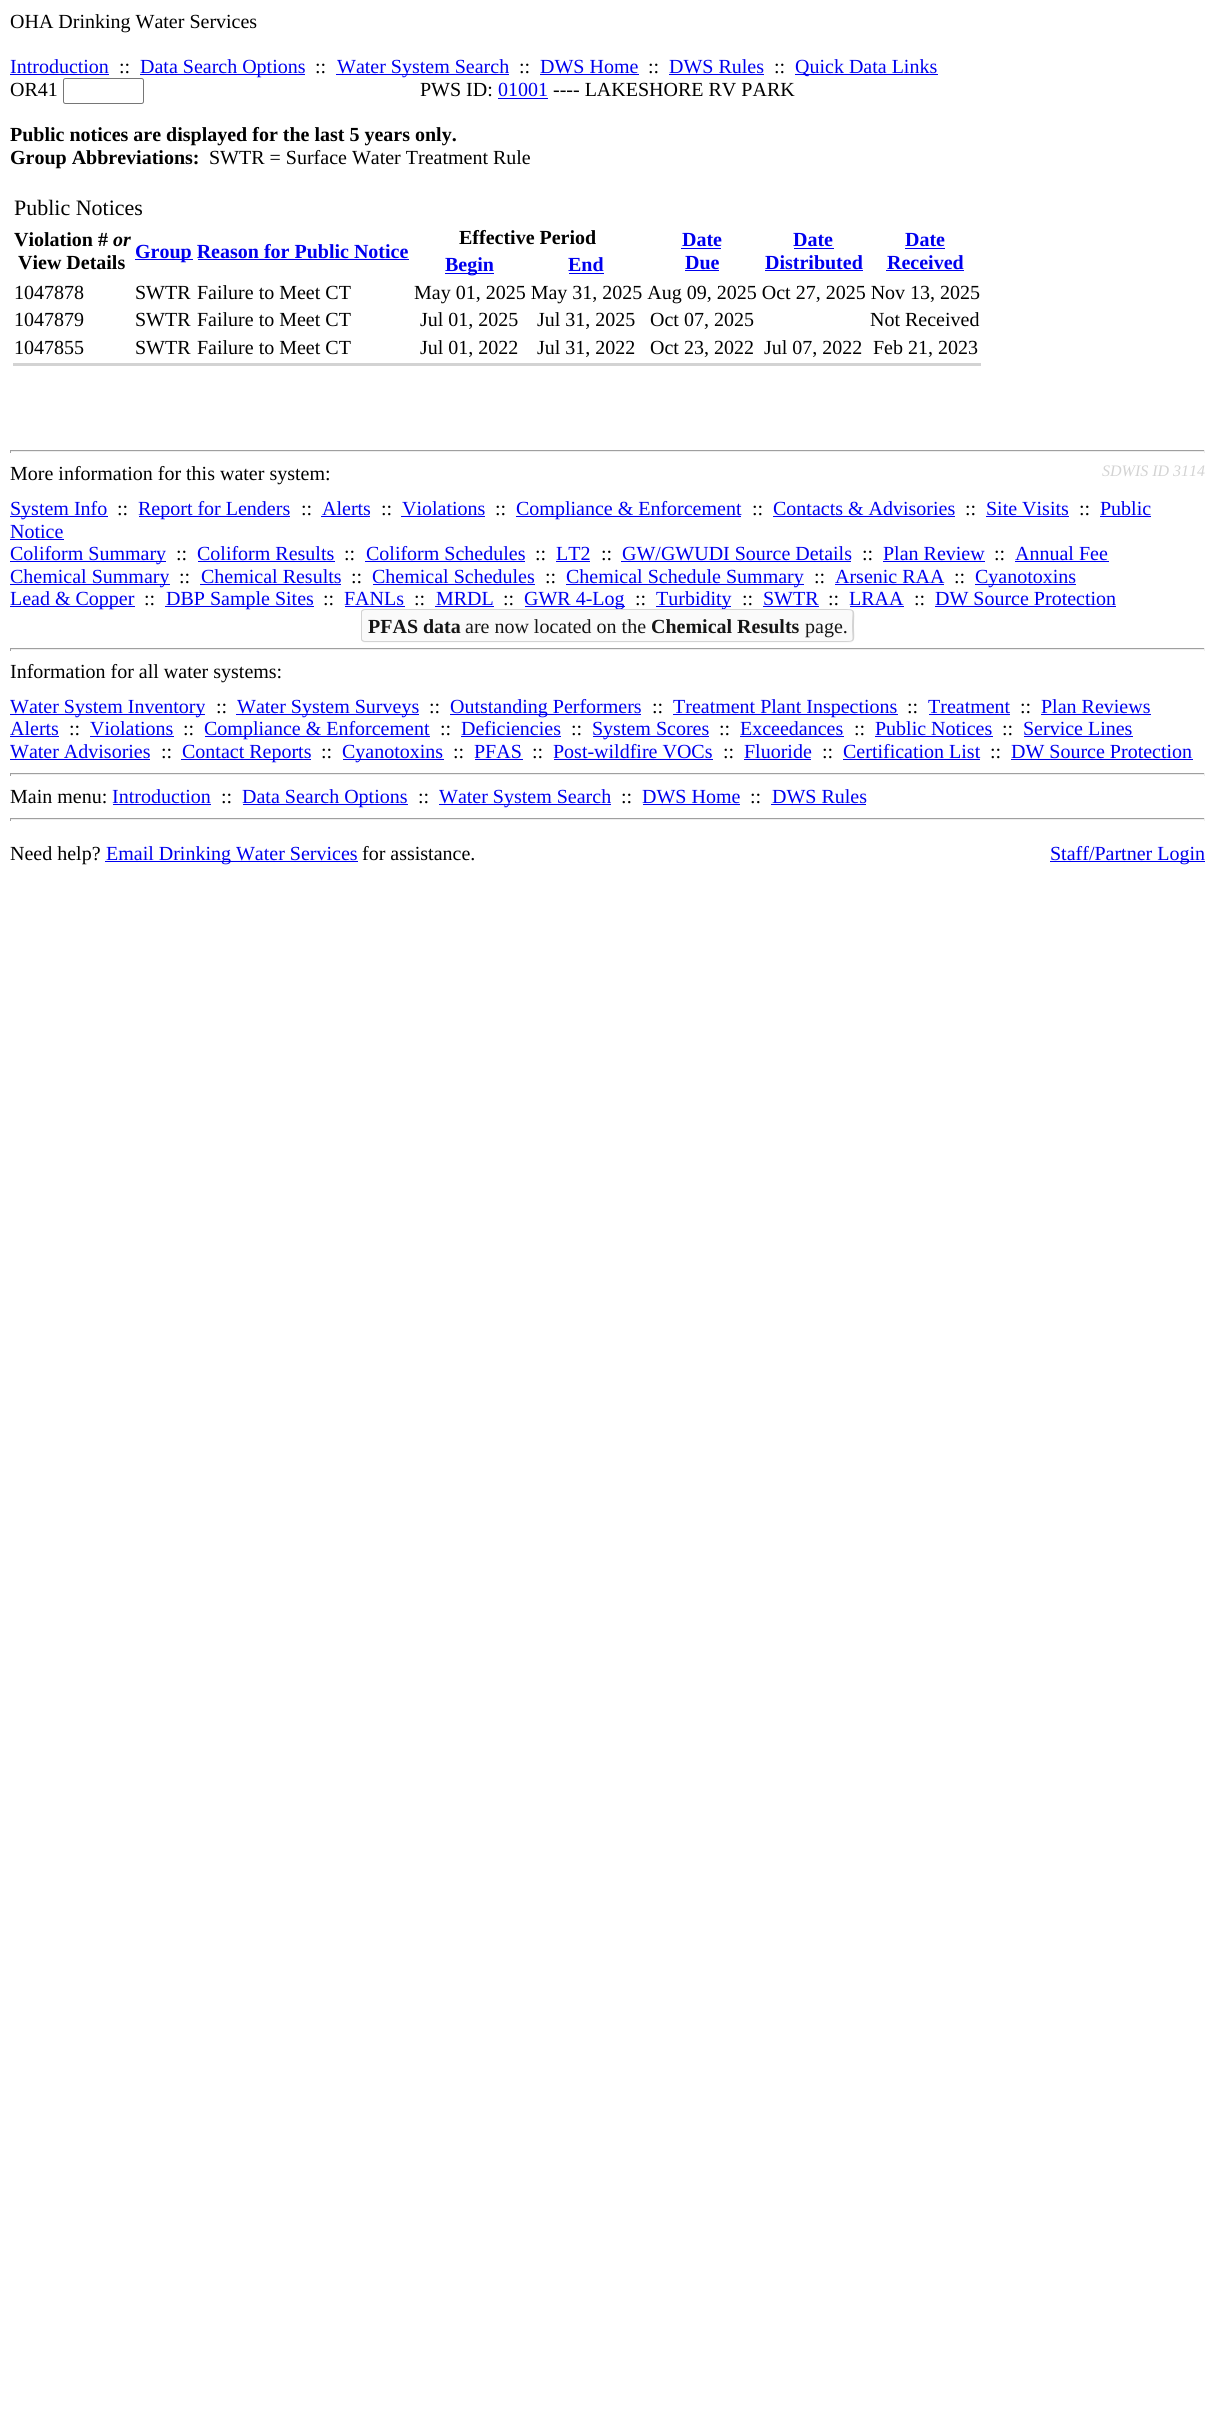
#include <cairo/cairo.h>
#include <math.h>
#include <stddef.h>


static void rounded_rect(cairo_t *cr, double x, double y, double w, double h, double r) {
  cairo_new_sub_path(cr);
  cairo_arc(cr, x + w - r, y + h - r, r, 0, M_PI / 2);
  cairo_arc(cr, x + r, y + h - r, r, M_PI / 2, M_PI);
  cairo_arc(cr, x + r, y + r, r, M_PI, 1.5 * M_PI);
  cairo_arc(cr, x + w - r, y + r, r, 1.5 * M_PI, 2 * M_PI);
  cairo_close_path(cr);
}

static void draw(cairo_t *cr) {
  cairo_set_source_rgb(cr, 1, 1, 1);
  cairo_paint(cr);
  cairo_set_source_rgb(cr, 0, 0, 238 / 255.0);
  cairo_rectangle(cr, 10, 74, 99, 1);
  cairo_fill(cr);
  cairo_rectangle(cr, 140, 74, 165, 1);
  cairo_fill(cr);
  cairo_rectangle(cr, 336, 74, 173, 1);
  cairo_fill(cr);
  cairo_rectangle(cr, 540, 74, 99, 1);
  cairo_fill(cr);
  cairo_rectangle(cr, 669, 74, 95, 1);
  cairo_fill(cr);
  cairo_rectangle(cr, 795, 74, 143, 1);
  cairo_fill(cr);
  rounded_rect(cr, 63.5, 78.5, 80, 25, 2);
  cairo_set_source_rgb(cr, 118 / 255.0, 118 / 255.0, 118 / 255.0);
  cairo_set_line_width(cr, 1);
  cairo_stroke(cr);
  cairo_set_source_rgb(cr, 0, 0, 238 / 255.0);
  cairo_rectangle(cr, 498, 98, 50, 1);
  cairo_fill(cr);
  cairo_rectangle(cr, 135, 259, 58, 1);
  cairo_fill(cr);
  cairo_rectangle(cr, 681, 248, 40, 1);
  cairo_fill(cr);
  cairo_rectangle(cr, 685, 270, 34, 1);
  cairo_fill(cr);
  cairo_rectangle(cr, 794, 248, 40, 1);
  cairo_fill(cr);
  cairo_rectangle(cr, 765, 270, 98, 1);
  cairo_fill(cr);
  cairo_rectangle(cr, 905, 248, 40, 1);
  cairo_fill(cr);
  cairo_rectangle(cr, 886, 270, 78, 1);
  cairo_fill(cr);
  cairo_rectangle(cr, 198, 259, 211, 1);
  cairo_fill(cr);
  cairo_rectangle(cr, 445, 273, 49, 1);
  cairo_fill(cr);
  cairo_rectangle(cr, 569, 273, 35, 1);
  cairo_fill(cr);
  cairo_set_source_rgb(cr, 211 / 255.0, 211 / 255.0, 211 / 255.0);
  cairo_rectangle(cr, 13, 363, 968, 3);
  cairo_fill(cr);
  cairo_set_source_rgb(cr, 159 / 255.0, 159 / 255.0, 159 / 255.0);
  cairo_rectangle(cr, 10, 450, 1195, 1);
  cairo_fill(cr);
  cairo_set_source_rgb(cr, 238 / 255.0, 238 / 255.0, 238 / 255.0);
  cairo_rectangle(cr, 1204, 450, 1, 3);
  cairo_fill(cr);
  cairo_rectangle(cr, 10, 451, 1195, 1);
  cairo_fill(cr);
  cairo_set_source_rgb(cr, 159 / 255.0, 159 / 255.0, 159 / 255.0);
  cairo_rectangle(cr, 10, 450, 1, 3);
  cairo_fill(cr);
  cairo_set_source_rgb(cr, 0, 0, 238 / 255.0);
  cairo_rectangle(cr, 10, 516, 98, 1);
  cairo_fill(cr);
  cairo_rectangle(cr, 139, 516, 151, 1);
  cairo_fill(cr);
  cairo_rectangle(cr, 321, 516, 49, 1);
  cairo_fill(cr);
  cairo_rectangle(cr, 401, 516, 84, 1);
  cairo_fill(cr);
  cairo_rectangle(cr, 516, 516, 225, 1);
  cairo_fill(cr);
  cairo_rectangle(cr, 773, 516, 182, 1);
  cairo_fill(cr);
  cairo_rectangle(cr, 986, 516, 83, 1);
  cairo_fill(cr);
  cairo_rectangle(cr, 1100, 516, 51, 1);
  cairo_fill(cr);
  cairo_rectangle(cr, 10, 539, 54, 1);
  cairo_fill(cr);
  cairo_rectangle(cr, 10, 561, 156, 1);
  cairo_fill(cr);
  cairo_rectangle(cr, 198, 561, 137, 1);
  cairo_fill(cr);
  cairo_rectangle(cr, 365, 561, 160, 1);
  cairo_fill(cr);
  cairo_rectangle(cr, 556, 561, 34, 1);
  cairo_fill(cr);
  cairo_rectangle(cr, 621, 561, 230, 1);
  cairo_fill(cr);
  cairo_rectangle(cr, 883, 561, 102, 1);
  cairo_fill(cr);
  cairo_rectangle(cr, 1015, 561, 94, 1);
  cairo_fill(cr);
  cairo_rectangle(cr, 10, 584, 160, 1);
  cairo_fill(cr);
  cairo_rectangle(cr, 200, 584, 141, 1);
  cairo_fill(cr);
  cairo_rectangle(cr, 373, 584, 162, 1);
  cairo_fill(cr);
  cairo_rectangle(cr, 566, 584, 238, 1);
  cairo_fill(cr);
  cairo_rectangle(cr, 835, 584, 109, 1);
  cairo_fill(cr);
  cairo_rectangle(cr, 975, 584, 101, 1);
  cairo_fill(cr);
  cairo_rectangle(cr, 10, 606, 125, 1);
  cairo_fill(cr);
  cairo_rectangle(cr, 165, 606, 149, 1);
  cairo_fill(cr);
  cairo_rectangle(cr, 345, 606, 60, 1);
  cairo_fill(cr);
  cairo_rectangle(cr, 435, 606, 59, 1);
  cairo_fill(cr);
  cairo_rectangle(cr, 525, 606, 100, 1);
  cairo_fill(cr);
  cairo_rectangle(cr, 656, 606, 75, 1);
  cairo_fill(cr);
  cairo_rectangle(cr, 763, 606, 56, 1);
  cairo_fill(cr);
  cairo_rectangle(cr, 850, 606, 54, 1);
  cairo_fill(cr);
  cairo_rectangle(cr, 935, 606, 181, 1);
  cairo_fill(cr);
  cairo_set_source_rgb(cr, 250 / 255.0, 250 / 255.0, 250 / 255.0);
  cairo_new_path(cr);
  cairo_move_to(cr, 365, 609);
  cairo_line_to(cr, 460, 609);
  cairo_line_to(cr, 460, 643);
  cairo_line_to(cr, 365, 643);
  cairo_curve_to(cr, 363, 643, 361, 641, 361, 639);
  cairo_line_to(cr, 361, 613);
  cairo_curve_to(cr, 361, 611, 363, 609, 365, 609);
  cairo_close_path(cr);
  cairo_fill(cr);
  cairo_set_source_rgb(cr, 211 / 255.0, 211 / 255.0, 211 / 255.0);
  cairo_set_fill_rule(cr, CAIRO_FILL_RULE_EVEN_ODD);
  cairo_new_path(cr);
  cairo_move_to(cr, 365, 609);
  cairo_line_to(cr, 460, 609);
  cairo_line_to(cr, 460, 642);
  cairo_line_to(cr, 365, 642);
  cairo_curve_to(cr, 363, 642, 361, 641, 361, 639);
  cairo_line_to(cr, 361, 612);
  cairo_curve_to(cr, 361, 610, 363, 609, 365, 609);
  cairo_close_path(cr);
  cairo_move_to(cr, 365, 610);
  cairo_line_to(cr, 460, 610);
  cairo_line_to(cr, 460, 641);
  cairo_line_to(cr, 365, 641);
  cairo_curve_to(cr, 364, 641, 362, 640, 362, 639);
  cairo_line_to(cr, 362, 612);
  cairo_curve_to(cr, 362, 611, 364, 610, 365, 610);
  cairo_close_path(cr);
  cairo_fill(cr);
  cairo_set_source_rgb(cr, 250 / 255.0, 250 / 255.0, 250 / 255.0);
  cairo_rectangle(cr, 460, 610, 340, 33);
  cairo_fill(cr);
  cairo_new_path(cr);
  cairo_move_to(cr, 800, 609);
  cairo_line_to(cr, 850, 609);
  cairo_curve_to(cr, 852, 609, 854, 611, 854, 613);
  cairo_line_to(cr, 854, 639);
  cairo_curve_to(cr, 854, 641, 852, 643, 850, 643);
  cairo_line_to(cr, 800, 643);
  cairo_close_path(cr);
  cairo_fill(cr);
  cairo_set_source_rgb(cr, 211 / 255.0, 211 / 255.0, 211 / 255.0);
  cairo_new_path(cr);
  cairo_move_to(cr, 800, 609);
  cairo_line_to(cr, 842, 609);
  cairo_curve_to(cr, 857, 609, 854, 609, 854, 626);
  cairo_curve_to(cr, 854, 642, 857, 642, 842, 642);
  cairo_line_to(cr, 800, 642);
  cairo_close_path(cr);
  cairo_move_to(cr, 800, 610);
  cairo_line_to(cr, 842, 610);
  cairo_curve_to(cr, 856, 610, 852, 609, 852, 626);
  cairo_curve_to(cr, 852, 642, 856, 641, 842, 641);
  cairo_line_to(cr, 800, 641);
  cairo_close_path(cr);
  cairo_fill(cr);
  cairo_rectangle(cr, 460, 641, 340, 1);
  cairo_fill(cr);
  cairo_set_source_rgb(cr, 159 / 255.0, 159 / 255.0, 159 / 255.0);
  cairo_rectangle(cr, 10, 648, 1195, 1);
  cairo_fill(cr);
  cairo_set_source_rgb(cr, 238 / 255.0, 238 / 255.0, 238 / 255.0);
  cairo_rectangle(cr, 1204, 648, 1, 3);
  cairo_fill(cr);
  cairo_rectangle(cr, 10, 649, 1195, 1);
  cairo_fill(cr);
  cairo_set_source_rgb(cr, 159 / 255.0, 159 / 255.0, 159 / 255.0);
  cairo_rectangle(cr, 10, 648, 1, 3);
  cairo_fill(cr);
  cairo_set_source_rgb(cr, 0, 0, 238 / 255.0);
  cairo_rectangle(cr, 10, 714, 195, 1);
  cairo_fill(cr);
  cairo_rectangle(cr, 236, 714, 183, 1);
  cairo_fill(cr);
  cairo_rectangle(cr, 450, 714, 191, 1);
  cairo_fill(cr);
  cairo_rectangle(cr, 673, 714, 225, 1);
  cairo_fill(cr);
  cairo_rectangle(cr, 929, 714, 81, 1);
  cairo_fill(cr);
  cairo_rectangle(cr, 1041, 714, 110, 1);
  cairo_fill(cr);
  cairo_rectangle(cr, 10, 736, 49, 1);
  cairo_fill(cr);
  cairo_rectangle(cr, 90, 736, 84, 1);
  cairo_fill(cr);
  cairo_rectangle(cr, 205, 736, 225, 1);
  cairo_fill(cr);
  cairo_rectangle(cr, 461, 736, 100, 1);
  cairo_fill(cr);
  cairo_rectangle(cr, 593, 736, 116, 1);
  cairo_fill(cr);
  cairo_rectangle(cr, 740, 736, 104, 1);
  cairo_fill(cr);
  cairo_rectangle(cr, 875, 736, 118, 1);
  cairo_fill(cr);
  cairo_rectangle(cr, 1024, 736, 109, 1);
  cairo_fill(cr);
  cairo_rectangle(cr, 10, 759, 140, 1);
  cairo_fill(cr);
  cairo_rectangle(cr, 181, 759, 130, 1);
  cairo_fill(cr);
  cairo_rectangle(cr, 343, 759, 101, 1);
  cairo_fill(cr);
  cairo_rectangle(cr, 475, 759, 48, 1);
  cairo_fill(cr);
  cairo_rectangle(cr, 554, 759, 159, 1);
  cairo_fill(cr);
  cairo_rectangle(cr, 744, 759, 67, 1);
  cairo_fill(cr);
  cairo_rectangle(cr, 843, 759, 137, 1);
  cairo_fill(cr);
  cairo_rectangle(cr, 1011, 759, 182, 1);
  cairo_fill(cr);
  cairo_set_source_rgb(cr, 159 / 255.0, 159 / 255.0, 159 / 255.0);
  cairo_rectangle(cr, 10, 773, 1195, 1);
  cairo_fill(cr);
  cairo_set_source_rgb(cr, 238 / 255.0, 238 / 255.0, 238 / 255.0);
  cairo_rectangle(cr, 1204, 773, 1, 3);
  cairo_fill(cr);
  cairo_rectangle(cr, 10, 774, 1195, 1);
  cairo_fill(cr);
  cairo_set_source_rgb(cr, 159 / 255.0, 159 / 255.0, 159 / 255.0);
  cairo_rectangle(cr, 10, 773, 1, 3);
  cairo_fill(cr);
  cairo_set_source_rgb(cr, 0, 0, 238 / 255.0);
  cairo_rectangle(cr, 113, 804, 98, 1);
  cairo_fill(cr);
  cairo_rectangle(cr, 243, 804, 165, 1);
  cairo_fill(cr);
  cairo_rectangle(cr, 439, 804, 172, 1);
  cairo_fill(cr);
  cairo_rectangle(cr, 643, 804, 97, 1);
  cairo_fill(cr);
  cairo_rectangle(cr, 771, 804, 95, 1);
  cairo_fill(cr);
  cairo_set_source_rgb(cr, 159 / 255.0, 159 / 255.0, 159 / 255.0);
  cairo_rectangle(cr, 10, 818, 1195, 1);
  cairo_fill(cr);
  cairo_set_source_rgb(cr, 238 / 255.0, 238 / 255.0, 238 / 255.0);
  cairo_rectangle(cr, 1204, 818, 1, 3);
  cairo_fill(cr);
  cairo_rectangle(cr, 10, 819, 1195, 1);
  cairo_fill(cr);
  cairo_set_source_rgb(cr, 159 / 255.0, 159 / 255.0, 159 / 255.0);
  cairo_rectangle(cr, 10, 818, 1, 3);
  cairo_fill(cr);
  cairo_set_source_rgb(cr, 0, 0, 238 / 255.0);
  cairo_rectangle(cr, 105, 861, 253, 1);
  cairo_fill(cr);
  cairo_rectangle(cr, 1050, 861, 155, 1);
  cairo_fill(cr);
  cairo_select_font_face(cr, "Liberation Serif", CAIRO_FONT_SLANT_NORMAL, CAIRO_FONT_WEIGHT_NORMAL);
  cairo_set_font_size(cr, 20);
  cairo_set_source_rgb(cr, 0, 0, 0);
  cairo_move_to(cr, 10, 28);
  cairo_show_text(cr, "OHA Drinking Water Services");
  cairo_set_source_rgb(cr, 0, 0, 238 / 255.0);
  cairo_move_to(cr, 10, 73);
  cairo_show_text(cr, "Introduction");
  cairo_set_source_rgb(cr, 0, 0, 0);
  cairo_move_to(cr, 119, 73);
  cairo_show_text(cr, "::");
  cairo_set_source_rgb(cr, 0, 0, 238 / 255.0);
  cairo_move_to(cr, 140, 73);
  cairo_show_text(cr, "Data Search Options");
  cairo_set_source_rgb(cr, 0, 0, 0);
  cairo_move_to(cr, 315, 73);
  cairo_show_text(cr, "::");
  cairo_set_source_rgb(cr, 0, 0, 238 / 255.0);
  cairo_move_to(cr, 337, 73);
  cairo_show_text(cr, "Water System Search");
  cairo_set_source_rgb(cr, 0, 0, 0);
  cairo_move_to(cr, 519, 73);
  cairo_show_text(cr, "::");
  cairo_set_source_rgb(cr, 0, 0, 238 / 255.0);
  cairo_move_to(cr, 540, 73);
  cairo_show_text(cr, "DWS Home");
  cairo_set_source_rgb(cr, 0, 0, 0);
  cairo_move_to(cr, 648, 73);
  cairo_show_text(cr, "::");
  cairo_set_source_rgb(cr, 0, 0, 238 / 255.0);
  cairo_move_to(cr, 669, 73);
  cairo_show_text(cr, "DWS Rules");
  cairo_set_source_rgb(cr, 0, 0, 0);
  cairo_move_to(cr, 774, 73);
  cairo_show_text(cr, "::");
  cairo_set_source_rgb(cr, 0, 0, 238 / 255.0);
  cairo_move_to(cr, 795, 73);
  cairo_show_text(cr, "Quick Data Links");
  cairo_set_source_rgb(cr, 0, 0, 0);
  cairo_move_to(cr, 10, 96);
  cairo_show_text(cr, "OR41");
  cairo_move_to(cr, 420, 96);
  cairo_show_text(cr, "PWS ID:");
  cairo_set_source_rgb(cr, 0, 0, 238 / 255.0);
  cairo_move_to(cr, 498, 96);
  cairo_show_text(cr, "01001");
  cairo_set_source_rgb(cr, 0, 0, 0);
  cairo_move_to(cr, 553, 96);
  cairo_show_text(cr, "---- LAKESHORE RV PARK");
  cairo_select_font_face(cr, "Liberation Serif", CAIRO_FONT_SLANT_NORMAL, CAIRO_FONT_WEIGHT_BOLD);
  cairo_move_to(cr, 10, 141);
  cairo_show_text(cr, "Public notices are displayed for the last 5 years only.");
  cairo_move_to(cr, 10, 164);
  cairo_show_text(cr, "Group Abbreviations:");
  cairo_select_font_face(cr, "Liberation Serif", CAIRO_FONT_SLANT_NORMAL, CAIRO_FONT_WEIGHT_NORMAL);
  cairo_move_to(cr, 209, 164);
  cairo_show_text(cr, "SWTR = Surface Water Treatment Rule");
  cairo_set_font_size(cr, 22);
  cairo_move_to(cr, 14, 215);
  cairo_show_text(cr, "Public Notices");
  cairo_select_font_face(cr, "Liberation Serif", CAIRO_FONT_SLANT_NORMAL, CAIRO_FONT_WEIGHT_BOLD);
  cairo_set_font_size(cr, 20);
  cairo_move_to(cr, 14, 246);
  cairo_show_text(cr, "Violation #");
  cairo_select_font_face(cr, "Liberation Serif", CAIRO_FONT_SLANT_ITALIC, CAIRO_FONT_WEIGHT_BOLD);
  cairo_move_to(cr, 113, 246);
  cairo_show_text(cr, "or");
  cairo_select_font_face(cr, "Liberation Serif", CAIRO_FONT_SLANT_NORMAL, CAIRO_FONT_WEIGHT_BOLD);
  cairo_move_to(cr, 18, 269);
  cairo_show_text(cr, "View Details");
  cairo_set_source_rgb(cr, 0, 0, 238 / 255.0);
  cairo_move_to(cr, 135, 258);
  cairo_show_text(cr, "Group Reason for Public Notice");
  cairo_set_source_rgb(cr, 0, 0, 0);
  cairo_move_to(cr, 459, 244);
  cairo_show_text(cr, "Effective Period");
  cairo_set_source_rgb(cr, 0, 0, 238 / 255.0);
  cairo_move_to(cr, 682, 246);
  cairo_show_text(cr, "Date");
  cairo_move_to(cr, 685, 269);
  cairo_show_text(cr, "Due");
  cairo_move_to(cr, 793, 246);
  cairo_show_text(cr, "Date");
  cairo_move_to(cr, 765, 269);
  cairo_show_text(cr, "Distributed");
  cairo_move_to(cr, 905, 246);
  cairo_show_text(cr, "Date");
  cairo_move_to(cr, 887, 269);
  cairo_show_text(cr, "Received");
  cairo_move_to(cr, 445, 271);
  cairo_show_text(cr, "Begin");
  cairo_move_to(cr, 568, 271);
  cairo_show_text(cr, "End");
  cairo_select_font_face(cr, "Liberation Serif", CAIRO_FONT_SLANT_NORMAL, CAIRO_FONT_WEIGHT_NORMAL);
  cairo_set_source_rgb(cr, 0, 0, 0);
  cairo_move_to(cr, 14, 299);
  cairo_show_text(cr, "1047878");
  cairo_move_to(cr, 135, 299);
  cairo_show_text(cr, "SWTR");
  cairo_move_to(cr, 197, 299);
  cairo_show_text(cr, "Failure to Meet CT");
  cairo_move_to(cr, 414, 299);
  cairo_show_text(cr, "May 01, 2025 May 31, 2025 Aug 09, 2025 Oct 27, 2025 Nov 13, 2025");
  cairo_move_to(cr, 14, 326);
  cairo_show_text(cr, "1047879");
  cairo_move_to(cr, 135, 326);
  cairo_show_text(cr, "SWTR");
  cairo_move_to(cr, 197, 326);
  cairo_show_text(cr, "Failure to Meet CT");
  cairo_move_to(cr, 420, 326);
  cairo_show_text(cr, "Jul 01, 2025");
  cairo_move_to(cr, 537, 326);
  cairo_show_text(cr, "Jul 31, 2025");
  cairo_move_to(cr, 650, 326);
  cairo_show_text(cr, "Oct 07, 2025");
  cairo_move_to(cr, 870, 326);
  cairo_show_text(cr, "Not Received");
  cairo_move_to(cr, 14, 354);
  cairo_show_text(cr, "1047855");
  cairo_move_to(cr, 135, 354);
  cairo_show_text(cr, "SWTR");
  cairo_move_to(cr, 197, 354);
  cairo_show_text(cr, "Failure to Meet CT");
  cairo_move_to(cr, 420, 354);
  cairo_show_text(cr, "Jul 01, 2022");
  cairo_move_to(cr, 537, 354);
  cairo_show_text(cr, "Jul 31, 2022");
  cairo_move_to(cr, 650, 354);
  cairo_show_text(cr, "Oct 23, 2022");
  cairo_move_to(cr, 764, 354);
  cairo_show_text(cr, "Jul 07, 2022");
  cairo_move_to(cr, 873, 354);
  cairo_show_text(cr, "Feb 21, 2023");
  cairo_move_to(cr, 10, 480);
  cairo_show_text(cr, "More information for this water system:");
  cairo_select_font_face(cr, "Liberation Serif", CAIRO_FONT_SLANT_ITALIC, CAIRO_FONT_WEIGHT_NORMAL);
  cairo_set_font_size(cr, 16);
  cairo_set_source_rgb(cr, 211 / 255.0, 211 / 255.0, 211 / 255.0);
  cairo_move_to(cr, 1102, 476);
  cairo_show_text(cr, "SDWIS ID 3114");
  cairo_select_font_face(cr, "Liberation Serif", CAIRO_FONT_SLANT_NORMAL, CAIRO_FONT_WEIGHT_NORMAL);
  cairo_set_font_size(cr, 20);
  cairo_set_source_rgb(cr, 0, 0, 238 / 255.0);
  cairo_move_to(cr, 10, 515);
  cairo_show_text(cr, "System Info");
  cairo_set_source_rgb(cr, 0, 0, 0);
  cairo_move_to(cr, 117, 515);
  cairo_show_text(cr, "::");
  cairo_set_source_rgb(cr, 0, 0, 238 / 255.0);
  cairo_move_to(cr, 138, 515);
  cairo_show_text(cr, "Report for Lenders");
  cairo_set_source_rgb(cr, 0, 0, 0);
  cairo_move_to(cr, 301, 515);
  cairo_show_text(cr, "::");
  cairo_set_source_rgb(cr, 0, 0, 238 / 255.0);
  cairo_move_to(cr, 322, 515);
  cairo_show_text(cr, "Alerts");
  cairo_set_source_rgb(cr, 0, 0, 0);
  cairo_move_to(cr, 381, 515);
  cairo_show_text(cr, "::");
  cairo_set_source_rgb(cr, 0, 0, 238 / 255.0);
  cairo_move_to(cr, 402, 515);
  cairo_show_text(cr, "Violations");
  cairo_set_source_rgb(cr, 0, 0, 0);
  cairo_move_to(cr, 495, 515);
  cairo_show_text(cr, "::");
  cairo_set_source_rgb(cr, 0, 0, 238 / 255.0);
  cairo_move_to(cr, 516, 515);
  cairo_show_text(cr, "Compliance & Enforcement");
  cairo_set_source_rgb(cr, 0, 0, 0);
  cairo_move_to(cr, 752, 515);
  cairo_show_text(cr, "::");
  cairo_set_source_rgb(cr, 0, 0, 238 / 255.0);
  cairo_move_to(cr, 773, 515);
  cairo_show_text(cr, "Contacts & Advisories");
  cairo_set_source_rgb(cr, 0, 0, 0);
  cairo_move_to(cr, 965, 515);
  cairo_show_text(cr, "::");
  cairo_set_source_rgb(cr, 0, 0, 238 / 255.0);
  cairo_move_to(cr, 986, 515);
  cairo_show_text(cr, "Site Visits");
  cairo_set_source_rgb(cr, 0, 0, 0);
  cairo_move_to(cr, 1079, 515);
  cairo_show_text(cr, "::");
  cairo_set_source_rgb(cr, 0, 0, 238 / 255.0);
  cairo_move_to(cr, 1100, 515);
  cairo_show_text(cr, "Public");
  cairo_move_to(cr, 10, 538);
  cairo_show_text(cr, "Notice");
  cairo_move_to(cr, 10, 560);
  cairo_show_text(cr, "Coliform Summary");
  cairo_set_source_rgb(cr, 0, 0, 0);
  cairo_move_to(cr, 176, 560);
  cairo_show_text(cr, "::");
  cairo_set_source_rgb(cr, 0, 0, 238 / 255.0);
  cairo_move_to(cr, 197, 560);
  cairo_show_text(cr, "Coliform Results");
  cairo_set_source_rgb(cr, 0, 0, 0);
  cairo_move_to(cr, 344, 560);
  cairo_show_text(cr, "::");
  cairo_set_source_rgb(cr, 0, 0, 238 / 255.0);
  cairo_move_to(cr, 366, 560);
  cairo_show_text(cr, "Coliform Schedules");
  cairo_set_source_rgb(cr, 0, 0, 0);
  cairo_move_to(cr, 535, 560);
  cairo_show_text(cr, "::");
  cairo_set_source_rgb(cr, 0, 0, 238 / 255.0);
  cairo_move_to(cr, 556, 560);
  cairo_show_text(cr, "LT2");
  cairo_set_source_rgb(cr, 0, 0, 0);
  cairo_move_to(cr, 601, 560);
  cairo_show_text(cr, "::");
  cairo_set_source_rgb(cr, 0, 0, 238 / 255.0);
  cairo_move_to(cr, 622, 560);
  cairo_show_text(cr, "GW/GWUDI Source Details");
  cairo_set_source_rgb(cr, 0, 0, 0);
  cairo_move_to(cr, 862, 560);
  cairo_show_text(cr, "::");
  cairo_set_source_rgb(cr, 0, 0, 238 / 255.0);
  cairo_move_to(cr, 883, 560);
  cairo_show_text(cr, "Plan Review");
  cairo_set_source_rgb(cr, 0, 0, 0);
  cairo_move_to(cr, 994, 560);
  cairo_show_text(cr, "::");
  cairo_set_source_rgb(cr, 0, 0, 238 / 255.0);
  cairo_move_to(cr, 1015, 560);
  cairo_show_text(cr, "Annual Fee");
  cairo_move_to(cr, 10, 583);
  cairo_show_text(cr, "Chemical Summary");
  cairo_set_source_rgb(cr, 0, 0, 0);
  cairo_move_to(cr, 179, 583);
  cairo_show_text(cr, "::");
  cairo_set_source_rgb(cr, 0, 0, 238 / 255.0);
  cairo_move_to(cr, 201, 583);
  cairo_show_text(cr, "Chemical Results");
  cairo_set_source_rgb(cr, 0, 0, 0);
  cairo_move_to(cr, 351, 583);
  cairo_show_text(cr, "::");
  cairo_set_source_rgb(cr, 0, 0, 238 / 255.0);
  cairo_move_to(cr, 372, 583);
  cairo_show_text(cr, "Chemical Schedules");
  cairo_set_source_rgb(cr, 0, 0, 0);
  cairo_move_to(cr, 545, 583);
  cairo_show_text(cr, "::");
  cairo_set_source_rgb(cr, 0, 0, 238 / 255.0);
  cairo_move_to(cr, 566, 583);
  cairo_show_text(cr, "Chemical Schedule Summary");
  cairo_set_source_rgb(cr, 0, 0, 0);
  cairo_move_to(cr, 814, 583);
  cairo_show_text(cr, "::");
  cairo_set_source_rgb(cr, 0, 0, 238 / 255.0);
  cairo_move_to(cr, 835, 583);
  cairo_show_text(cr, "Arsenic RAA");
  cairo_set_source_rgb(cr, 0, 0, 0);
  cairo_move_to(cr, 954, 583);
  cairo_show_text(cr, "::");
  cairo_set_source_rgb(cr, 0, 0, 238 / 255.0);
  cairo_move_to(cr, 975, 583);
  cairo_show_text(cr, "Cyanotoxins");
  cairo_move_to(cr, 10, 605);
  cairo_show_text(cr, "Lead & Copper");
  cairo_set_source_rgb(cr, 0, 0, 0);
  cairo_move_to(cr, 144, 605);
  cairo_show_text(cr, "::");
  cairo_set_source_rgb(cr, 0, 0, 238 / 255.0);
  cairo_move_to(cr, 166, 605);
  cairo_show_text(cr, "DBP Sample Sites");
  cairo_set_source_rgb(cr, 0, 0, 0);
  cairo_move_to(cr, 323, 605);
  cairo_show_text(cr, "::");
  cairo_set_source_rgb(cr, 0, 0, 238 / 255.0);
  cairo_move_to(cr, 344, 605);
  cairo_show_text(cr, "FANLs");
  cairo_set_source_rgb(cr, 0, 0, 0);
  cairo_move_to(cr, 414, 605);
  cairo_show_text(cr, "::");
  cairo_set_source_rgb(cr, 0, 0, 238 / 255.0);
  cairo_move_to(cr, 436, 605);
  cairo_show_text(cr, "MRDL");
  cairo_set_source_rgb(cr, 0, 0, 0);
  cairo_move_to(cr, 503, 605);
  cairo_show_text(cr, "::");
  cairo_set_source_rgb(cr, 0, 0, 238 / 255.0);
  cairo_move_to(cr, 524, 605);
  cairo_show_text(cr, "GWR 4-Log");
  cairo_set_source_rgb(cr, 0, 0, 0);
  cairo_move_to(cr, 635, 605);
  cairo_show_text(cr, "::");
  cairo_set_source_rgb(cr, 0, 0, 238 / 255.0);
  cairo_move_to(cr, 656, 605);
  cairo_show_text(cr, "Turbidity");
  cairo_set_source_rgb(cr, 0, 0, 0);
  cairo_move_to(cr, 742, 605);
  cairo_show_text(cr, "::");
  cairo_set_source_rgb(cr, 0, 0, 238 / 255.0);
  cairo_move_to(cr, 763, 605);
  cairo_show_text(cr, "SWTR");
  cairo_set_source_rgb(cr, 0, 0, 0);
  cairo_move_to(cr, 828, 605);
  cairo_show_text(cr, "::");
  cairo_set_source_rgb(cr, 0, 0, 238 / 255.0);
  cairo_move_to(cr, 849, 605);
  cairo_show_text(cr, "LRAA");
  cairo_set_source_rgb(cr, 0, 0, 0);
  cairo_move_to(cr, 914, 605);
  cairo_show_text(cr, "::");
  cairo_set_source_rgb(cr, 0, 0, 238 / 255.0);
  cairo_move_to(cr, 935, 605);
  cairo_show_text(cr, "DW Source Protection");
  cairo_select_font_face(cr, "Liberation Serif", CAIRO_FONT_SLANT_NORMAL, CAIRO_FONT_WEIGHT_BOLD);
  cairo_set_source_rgb(cr, 21 / 255.0, 21 / 255.0, 21 / 255.0);
  cairo_move_to(cr, 368, 633);
  cairo_show_text(cr, "PFAS data");
  cairo_set_source_rgb(cr, 211 / 255.0, 211 / 255.0, 211 / 255.0);
  cairo_rectangle(cr, 460, 609, 340, 1);
  cairo_fill(cr);
  cairo_select_font_face(cr, "Liberation Serif", CAIRO_FONT_SLANT_NORMAL, CAIRO_FONT_WEIGHT_NORMAL);
  cairo_set_source_rgb(cr, 21 / 255.0, 21 / 255.0, 21 / 255.0);
  cairo_move_to(cr, 465, 633);
  cairo_show_text(cr, "are now located on the");
  cairo_select_font_face(cr, "Liberation Serif", CAIRO_FONT_SLANT_NORMAL, CAIRO_FONT_WEIGHT_BOLD);
  cairo_move_to(cr, 651, 633);
  cairo_show_text(cr, "Chemical Results");
  cairo_select_font_face(cr, "Liberation Serif", CAIRO_FONT_SLANT_NORMAL, CAIRO_FONT_WEIGHT_NORMAL);
  cairo_move_to(cr, 805, 633);
  cairo_show_text(cr, "page.");
  cairo_set_source_rgb(cr, 0, 0, 0);
  cairo_move_to(cr, 10, 678);
  cairo_show_text(cr, "Information for all water systems:");
  cairo_set_source_rgb(cr, 0, 0, 238 / 255.0);
  cairo_move_to(cr, 10, 713);
  cairo_show_text(cr, "Water System Inventory");
  cairo_set_source_rgb(cr, 0, 0, 0);
  cairo_move_to(cr, 216, 713);
  cairo_show_text(cr, "::");
  cairo_set_source_rgb(cr, 0, 0, 238 / 255.0);
  cairo_move_to(cr, 237, 713);
  cairo_show_text(cr, "Water System Surveys");
  cairo_set_source_rgb(cr, 0, 0, 0);
  cairo_move_to(cr, 429, 713);
  cairo_show_text(cr, "::");
  cairo_set_source_rgb(cr, 0, 0, 238 / 255.0);
  cairo_move_to(cr, 450, 713);
  cairo_show_text(cr, "Outstanding Performers");
  cairo_set_source_rgb(cr, 0, 0, 0);
  cairo_move_to(cr, 652, 713);
  cairo_show_text(cr, "::");
  cairo_set_source_rgb(cr, 0, 0, 238 / 255.0);
  cairo_move_to(cr, 673, 713);
  cairo_show_text(cr, "Treatment Plant Inspections");
  cairo_set_source_rgb(cr, 0, 0, 0);
  cairo_move_to(cr, 907, 713);
  cairo_show_text(cr, "::");
  cairo_set_source_rgb(cr, 0, 0, 238 / 255.0);
  cairo_move_to(cr, 928, 713);
  cairo_show_text(cr, "Treatment");
  cairo_set_source_rgb(cr, 0, 0, 0);
  cairo_move_to(cr, 1020, 713);
  cairo_show_text(cr, "::");
  cairo_set_source_rgb(cr, 0, 0, 238 / 255.0);
  cairo_move_to(cr, 1041, 713);
  cairo_show_text(cr, "Plan Reviews");
  cairo_move_to(cr, 10, 735);
  cairo_show_text(cr, "Alerts");
  cairo_set_source_rgb(cr, 0, 0, 0);
  cairo_move_to(cr, 69, 735);
  cairo_show_text(cr, "::");
  cairo_set_source_rgb(cr, 0, 0, 238 / 255.0);
  cairo_move_to(cr, 90, 735);
  cairo_show_text(cr, "Violations");
  cairo_set_source_rgb(cr, 0, 0, 0);
  cairo_move_to(cr, 183, 735);
  cairo_show_text(cr, "::");
  cairo_set_source_rgb(cr, 0, 0, 238 / 255.0);
  cairo_move_to(cr, 204, 735);
  cairo_show_text(cr, "Compliance & Enforcement");
  cairo_set_source_rgb(cr, 0, 0, 0);
  cairo_move_to(cr, 440, 735);
  cairo_show_text(cr, "::");
  cairo_set_source_rgb(cr, 0, 0, 238 / 255.0);
  cairo_move_to(cr, 461, 735);
  cairo_show_text(cr, "Deficiencies");
  cairo_set_source_rgb(cr, 0, 0, 0);
  cairo_move_to(cr, 571, 735);
  cairo_show_text(cr, "::");
  cairo_set_source_rgb(cr, 0, 0, 238 / 255.0);
  cairo_move_to(cr, 592, 735);
  cairo_show_text(cr, "System Scores");
  cairo_set_source_rgb(cr, 0, 0, 0);
  cairo_move_to(cr, 719, 735);
  cairo_show_text(cr, "::");
  cairo_set_source_rgb(cr, 0, 0, 238 / 255.0);
  cairo_move_to(cr, 740, 735);
  cairo_show_text(cr, "Exceedances");
  cairo_set_source_rgb(cr, 0, 0, 0);
  cairo_move_to(cr, 854, 735);
  cairo_show_text(cr, "::");
  cairo_set_source_rgb(cr, 0, 0, 238 / 255.0);
  cairo_move_to(cr, 875, 735);
  cairo_show_text(cr, "Public Notices");
  cairo_set_source_rgb(cr, 0, 0, 0);
  cairo_move_to(cr, 1002, 735);
  cairo_show_text(cr, "::");
  cairo_set_source_rgb(cr, 0, 0, 238 / 255.0);
  cairo_move_to(cr, 1023, 735);
  cairo_show_text(cr, "Service Lines");
  cairo_move_to(cr, 10, 758);
  cairo_show_text(cr, "Water Advisories");
  cairo_set_source_rgb(cr, 0, 0, 0);
  cairo_move_to(cr, 161, 758);
  cairo_show_text(cr, "::");
  cairo_set_source_rgb(cr, 0, 0, 238 / 255.0);
  cairo_move_to(cr, 182, 758);
  cairo_show_text(cr, "Contact Reports");
  cairo_set_source_rgb(cr, 0, 0, 0);
  cairo_move_to(cr, 321, 758);
  cairo_show_text(cr, "::");
  cairo_set_source_rgb(cr, 0, 0, 238 / 255.0);
  cairo_move_to(cr, 342, 758);
  cairo_show_text(cr, "Cyanotoxins");
  cairo_set_source_rgb(cr, 0, 0, 0);
  cairo_move_to(cr, 453, 758);
  cairo_show_text(cr, "::");
  cairo_set_source_rgb(cr, 0, 0, 238 / 255.0);
  cairo_move_to(cr, 474, 758);
  cairo_show_text(cr, "PFAS");
  cairo_set_source_rgb(cr, 0, 0, 0);
  cairo_move_to(cr, 532, 758);
  cairo_show_text(cr, "::");
  cairo_set_source_rgb(cr, 0, 0, 238 / 255.0);
  cairo_move_to(cr, 553, 758);
  cairo_show_text(cr, "Post-wildfire VOCs");
  cairo_set_source_rgb(cr, 0, 0, 0);
  cairo_move_to(cr, 723, 758);
  cairo_show_text(cr, "::");
  cairo_set_source_rgb(cr, 0, 0, 238 / 255.0);
  cairo_move_to(cr, 744, 758);
  cairo_show_text(cr, "Fluoride");
  cairo_set_source_rgb(cr, 0, 0, 0);
  cairo_move_to(cr, 822, 758);
  cairo_show_text(cr, "::");
  cairo_set_source_rgb(cr, 0, 0, 238 / 255.0);
  cairo_move_to(cr, 843, 758);
  cairo_show_text(cr, "Certification List");
  cairo_set_source_rgb(cr, 0, 0, 0);
  cairo_move_to(cr, 990, 758);
  cairo_show_text(cr, "::");
  cairo_set_source_rgb(cr, 0, 0, 238 / 255.0);
  cairo_move_to(cr, 1011, 758);
  cairo_show_text(cr, "DW Source Protection");
  cairo_set_source_rgb(cr, 0, 0, 0);
  cairo_move_to(cr, 10, 803);
  cairo_show_text(cr, "Main menu:");
  cairo_set_source_rgb(cr, 0, 0, 238 / 255.0);
  cairo_move_to(cr, 112, 803);
  cairo_show_text(cr, "Introduction");
  cairo_set_source_rgb(cr, 0, 0, 0);
  cairo_move_to(cr, 221, 803);
  cairo_show_text(cr, "::");
  cairo_set_source_rgb(cr, 0, 0, 238 / 255.0);
  cairo_move_to(cr, 242, 803);
  cairo_show_text(cr, "Data Search Options");
  cairo_set_source_rgb(cr, 0, 0, 0);
  cairo_move_to(cr, 418, 803);
  cairo_show_text(cr, "::");
  cairo_set_source_rgb(cr, 0, 0, 238 / 255.0);
  cairo_move_to(cr, 439, 803);
  cairo_show_text(cr, "Water System Search");
  cairo_set_source_rgb(cr, 0, 0, 0);
  cairo_move_to(cr, 621, 803);
  cairo_show_text(cr, "::");
  cairo_set_source_rgb(cr, 0, 0, 238 / 255.0);
  cairo_move_to(cr, 642, 803);
  cairo_show_text(cr, "DWS Home");
  cairo_set_source_rgb(cr, 0, 0, 0);
  cairo_move_to(cr, 750, 803);
  cairo_show_text(cr, "::");
  cairo_set_source_rgb(cr, 0, 0, 238 / 255.0);
  cairo_move_to(cr, 772, 803);
  cairo_show_text(cr, "DWS Rules");
  cairo_set_source_rgb(cr, 0, 0, 0);
  cairo_move_to(cr, 10, 860);
  cairo_show_text(cr, "Need help?");
  cairo_set_source_rgb(cr, 0, 0, 238 / 255.0);
  cairo_move_to(cr, 106, 860);
  cairo_show_text(cr, "Email Drinking Water Services");
  cairo_set_source_rgb(cr, 0, 0, 0);
  cairo_move_to(cr, 362, 860);
  cairo_show_text(cr, "for assistance.");
  cairo_set_source_rgb(cr, 0, 0, 238 / 255.0);
  cairo_move_to(cr, 1050, 860);
  cairo_show_text(cr, "Staff/Partner Login");
}

int main(void) {
  cairo_surface_t *surface = cairo_image_surface_create(CAIRO_FORMAT_RGB24, 1215, 2412);
  cairo_t *cr = cairo_create(surface);
  cairo_font_options_t *options = cairo_font_options_create();
  cairo_font_options_set_hint_metrics(options, CAIRO_HINT_METRICS_OFF);
  cairo_font_options_set_hint_style(options, CAIRO_HINT_STYLE_NONE);
  cairo_set_font_options(cr, options);
  cairo_set_miter_limit(cr, 4);
  draw(cr);
  cairo_surface_write_to_png(surface, "out.png");
  cairo_font_options_destroy(options);
  cairo_destroy(cr);
  cairo_surface_destroy(surface);
  return 0;
}
